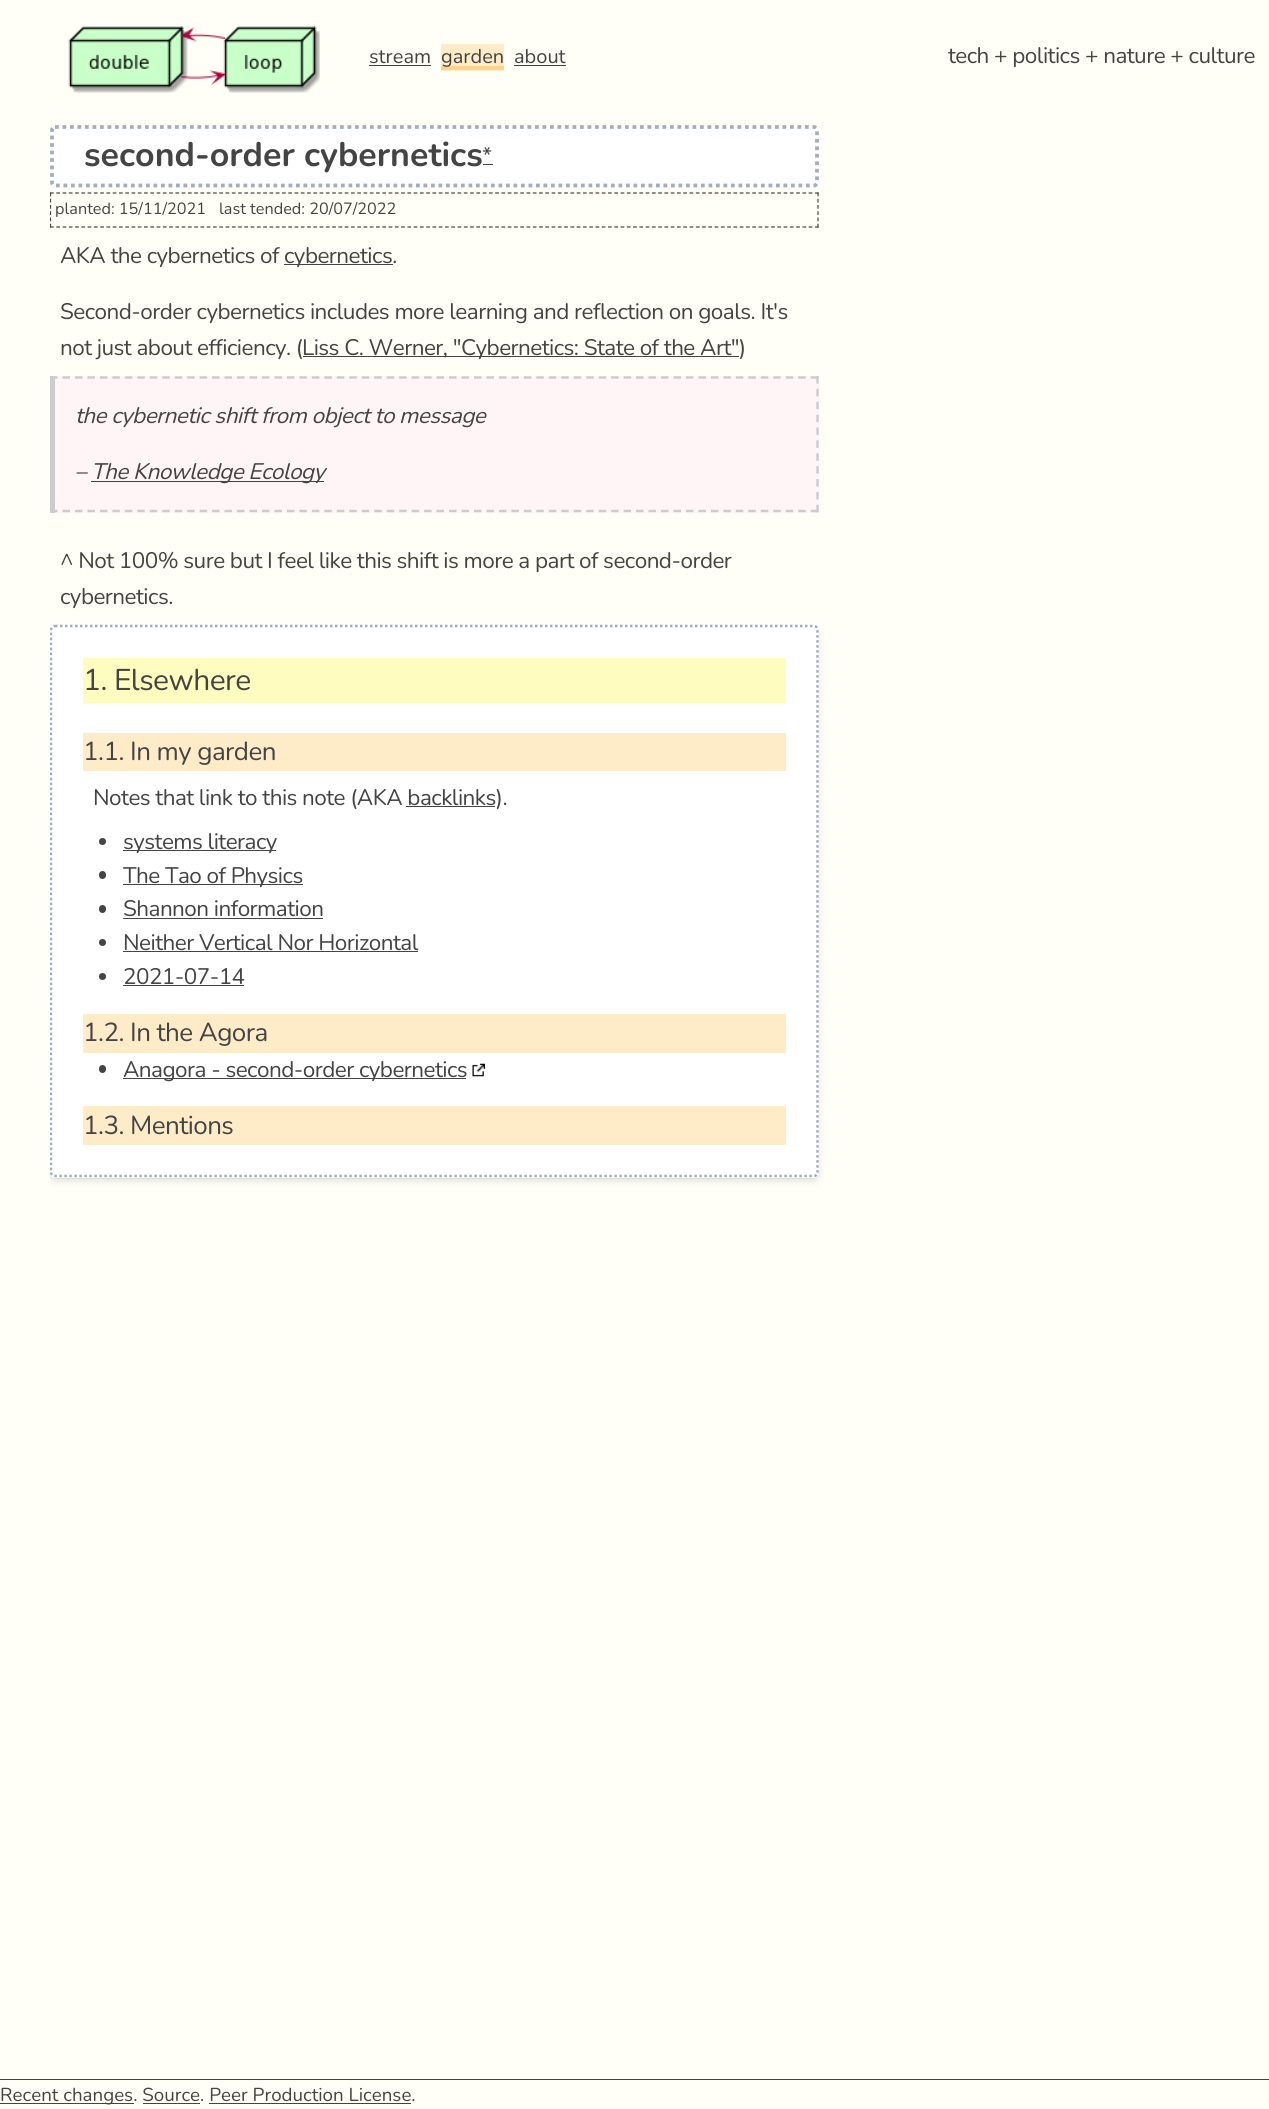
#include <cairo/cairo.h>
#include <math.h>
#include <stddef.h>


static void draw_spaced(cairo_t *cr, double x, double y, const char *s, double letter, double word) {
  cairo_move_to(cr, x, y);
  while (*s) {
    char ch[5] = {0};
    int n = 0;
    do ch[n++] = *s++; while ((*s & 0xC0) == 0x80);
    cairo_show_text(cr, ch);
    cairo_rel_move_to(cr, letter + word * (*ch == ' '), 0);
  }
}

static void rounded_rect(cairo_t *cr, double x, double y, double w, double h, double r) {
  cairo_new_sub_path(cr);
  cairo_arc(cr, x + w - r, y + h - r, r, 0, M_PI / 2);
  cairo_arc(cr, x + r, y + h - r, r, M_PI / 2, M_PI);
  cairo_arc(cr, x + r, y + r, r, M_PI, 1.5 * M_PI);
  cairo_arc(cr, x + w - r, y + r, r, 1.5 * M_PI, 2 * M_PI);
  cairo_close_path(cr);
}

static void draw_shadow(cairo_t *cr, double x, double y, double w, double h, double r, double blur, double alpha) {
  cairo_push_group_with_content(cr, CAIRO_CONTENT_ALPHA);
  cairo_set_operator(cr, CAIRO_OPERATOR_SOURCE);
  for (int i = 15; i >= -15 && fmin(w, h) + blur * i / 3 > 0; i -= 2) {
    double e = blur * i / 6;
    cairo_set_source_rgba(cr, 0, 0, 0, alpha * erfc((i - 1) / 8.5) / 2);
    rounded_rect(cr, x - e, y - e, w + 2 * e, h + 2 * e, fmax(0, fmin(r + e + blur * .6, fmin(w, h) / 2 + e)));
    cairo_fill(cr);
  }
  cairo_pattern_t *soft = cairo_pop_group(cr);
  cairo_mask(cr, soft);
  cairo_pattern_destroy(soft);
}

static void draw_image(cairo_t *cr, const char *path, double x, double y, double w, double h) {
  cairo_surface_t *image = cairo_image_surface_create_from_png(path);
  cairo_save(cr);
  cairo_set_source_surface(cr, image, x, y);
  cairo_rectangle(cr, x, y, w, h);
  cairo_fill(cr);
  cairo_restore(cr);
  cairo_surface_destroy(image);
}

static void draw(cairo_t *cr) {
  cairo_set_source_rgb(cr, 1, 1, 248 / 255.0);
  cairo_paint(cr);
  draw_image(cr, "images/1.png", 68, 26, 252, 67);
  cairo_set_source_rgb(cr, 68 / 255.0, 68 / 255.0, 68 / 255.0);
  cairo_rectangle(cr, 369, 65, 62, 1);
  cairo_fill(cr);
  cairo_set_source_rgb(cr, 254 / 255.0, 235 / 255.0, 200 / 255.0);
  cairo_rectangle(cr, 441, 44, 63, 27);
  cairo_fill(cr);
  cairo_set_source_rgb(cr, 251 / 255.0, 211 / 255.0, 141 / 255.0);
  cairo_rectangle(cr, 441, 66, 63, 4);
  cairo_fill(cr);
  cairo_set_source_rgb(cr, 68 / 255.0, 68 / 255.0, 68 / 255.0);
  cairo_rectangle(cr, 514, 65, 52, 1);
  cairo_fill(cr);
  cairo_set_source_rgb(cr, 1, 1, 1);
  rounded_rect(cr, 50, 125, 769, 63, 5);
  cairo_fill(cr);
  cairo_new_path(cr);
  cairo_move_to(cr, 55, 127);
  cairo_line_to(cr, 814, 127);
  cairo_curve_to(cr, 815.5, 127, 817, 128.5, 817, 130);
  cairo_line_to(cr, 817, 182.5);
  cairo_curve_to(cr, 817, 184, 815.5, 185.5, 814, 185.5);
  cairo_line_to(cr, 55, 185.5);
  cairo_curve_to(cr, 53.5, 185.5, 52, 184, 52, 182.5);
  cairo_line_to(cr, 52, 130);
  cairo_curve_to(cr, 52, 128.5, 53.5, 127, 55, 127);
  cairo_close_path(cr);
  cairo_set_source_rgb(cr, 160 / 255.0, 174 / 255.0, 192 / 255.0);
  cairo_set_line_width(cr, 3.8);
  cairo_set_dash(cr, (double[]){3.75, 3.75}, 2, 0);
  cairo_stroke(cr);
  cairo_set_source_rgb(cr, 68 / 255.0, 68 / 255.0, 68 / 255.0);
  cairo_rectangle(cr, 483, 164, 10, 1);
  cairo_fill(cr);
  cairo_new_path(cr);
  cairo_move_to(cr, 50, 193);
  cairo_line_to(cr, 819, 193);
  cairo_set_line_width(cr, 1.2);
  cairo_set_dash(cr, (double[]){3.75, 2.52}, 2, 0);
  cairo_stroke(cr);
  cairo_new_path(cr);
  cairo_move_to(cr, 818, 192.5);
  cairo_line_to(cr, 818, 227.5);
  cairo_set_dash(cr, (double[]){3.75, 2.5}, 2, 0);
  cairo_stroke(cr);
  cairo_new_path(cr);
  cairo_move_to(cr, 50, 227);
  cairo_line_to(cr, 819, 227);
  cairo_set_dash(cr, (double[]){3.75, 2.52}, 2, 0);
  cairo_stroke(cr);
  cairo_save(cr);
  cairo_rectangle(cr, 50, 113, 781, 1966);
  cairo_clip(cr);
  cairo_new_path(cr);
  cairo_move_to(cr, 50.5, 192.5);
  cairo_line_to(cr, 50.5, 227.5);
  cairo_set_dash(cr, (double[]){3.75, 2.5}, 2, 0);
  cairo_stroke(cr);
  cairo_restore(cr);
  cairo_rectangle(cr, 284, 264, 109, 1);
  cairo_fill(cr);
  cairo_rectangle(cr, 303, 356, 436, 1);
  cairo_fill(cr);
  cairo_set_source_rgb(cr, 1, 245 / 255.0, 247 / 255.0);
  cairo_rectangle(cr, 55, 376, 764, 137);
  cairo_fill(cr);
  cairo_new_path(cr);
  cairo_move_to(cr, 50, 377.5);
  cairo_line_to(cr, 819, 377.5);
  cairo_set_source_rgb(cr, 204 / 255.0, 204 / 255.0, 204 / 255.0);
  cairo_set_line_width(cr, 2.5);
  cairo_set_dash(cr, (double[]){7.5, 4.97}, 2, 0);
  cairo_stroke(cr);
  cairo_new_path(cr);
  cairo_move_to(cr, 817.5, 376);
  cairo_line_to(cr, 817.5, 512.5);
  cairo_set_dash(cr, (double[]){7.5, 5.38}, 2, 0);
  cairo_stroke(cr);
  cairo_new_path(cr);
  cairo_move_to(cr, 50, 511);
  cairo_line_to(cr, 819, 511);
  cairo_set_dash(cr, (double[]){7.5, 4.97}, 2, 0);
  cairo_stroke(cr);
  cairo_rectangle(cr, 50, 376, 5, 137);
  cairo_fill(cr);
  cairo_set_source_rgb(cr, 68 / 255.0, 68 / 255.0, 68 / 255.0);
  cairo_rectangle(cr, 91, 481, 233, 1);
  cairo_fill(cr);
  cairo_set_source_rgb(cr, 0, 0, 0);
  draw_shadow(cr, 51, 629, 767, 550, 4, 2.5, 0.06);
  cairo_save(cr);
  cairo_rectangle(cr, 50, 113, 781, 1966);
  cairo_clip(cr);
  draw_shadow(cr, 51, 631, 767, 550, 4, 4, 0.1);
  cairo_restore(cr);
  cairo_set_source_rgb(cr, 1, 1, 1);
  rounded_rect(cr, 50, 625, 769, 553, 5);
  cairo_fill(cr);
  cairo_save(cr);
  cairo_rectangle(cr, 50, 113, 781, 1966);
  cairo_clip(cr);
  cairo_new_path(cr);
  cairo_move_to(cr, 55, 626);
  cairo_line_to(cr, 814, 626);
  cairo_curve_to(cr, 816, 626, 817.5, 628, 817.5, 630);
  cairo_line_to(cr, 817.5, 1172.5);
  cairo_curve_to(cr, 817.5, 1174.5, 816, 1176, 814, 1176);
  cairo_line_to(cr, 55, 1176);
  cairo_curve_to(cr, 53, 1176, 51, 1174.5, 51, 1172.5);
  cairo_line_to(cr, 51, 630);
  cairo_curve_to(cr, 51, 628, 53, 626, 55, 626);
  cairo_close_path(cr);
  cairo_set_source_rgb(cr, 160 / 255.0, 174 / 255.0, 192 / 255.0);
  cairo_set_dash(cr, (double[]){2.5, 2.5}, 2, 0);
  cairo_stroke(cr);
  cairo_restore(cr);
  cairo_set_source_rgb(cr, 254 / 255.0, 252 / 255.0, 191 / 255.0);
  cairo_rectangle(cr, 83, 658, 703, 45);
  cairo_fill(cr);
  cairo_set_source_rgb(cr, 254 / 255.0, 235 / 255.0, 200 / 255.0);
  cairo_rectangle(cr, 83, 733, 703, 38);
  cairo_fill(cr);
  cairo_set_source_rgb(cr, 68 / 255.0, 68 / 255.0, 68 / 255.0);
  cairo_rectangle(cr, 406, 806, 89, 1);
  cairo_fill(cr);
  cairo_arc(cr, 102.5, 841.5, 3.5, 0, 2 * M_PI);
  cairo_fill(cr);
  cairo_rectangle(cr, 123, 850, 153, 1);
  cairo_fill(cr);
  rounded_rect(cr, 99, 871, 7, 8, 3.5);
  cairo_fill(cr);
  cairo_rectangle(cr, 123, 884, 180, 1);
  cairo_fill(cr);
  rounded_rect(cr, 99, 905, 7, 8, 3.5);
  cairo_fill(cr);
  cairo_rectangle(cr, 123, 918, 200, 1);
  cairo_fill(cr);
  cairo_arc(cr, 102.5, 942.5, 3.5, 0, 2 * M_PI);
  cairo_fill(cr);
  cairo_rectangle(cr, 123, 951, 295, 1);
  cairo_fill(cr);
  cairo_arc(cr, 102.5, 976.5, 3.5, 0, 2 * M_PI);
  cairo_fill(cr);
  cairo_rectangle(cr, 123, 985, 121, 1);
  cairo_fill(cr);
  cairo_set_source_rgb(cr, 254 / 255.0, 235 / 255.0, 200 / 255.0);
  cairo_rectangle(cr, 83, 1014, 703, 39);
  cairo_fill(cr);
  cairo_set_source_rgb(cr, 68 / 255.0, 68 / 255.0, 68 / 255.0);
  rounded_rect(cr, 99, 1065, 7, 8, 3.5);
  cairo_fill(cr);
  cairo_rectangle(cr, 123, 1078, 343, 1);
  cairo_fill(cr);
  draw_image(cr, "images/2.png", 472, 1063, 13, 14);
  cairo_set_source_rgb(cr, 254 / 255.0, 235 / 255.0, 200 / 255.0);
  cairo_rectangle(cr, 83, 1106, 703, 39);
  cairo_fill(cr);
  cairo_set_source_rgb(cr, 68 / 255.0, 68 / 255.0, 68 / 255.0);
  cairo_rectangle(cr, 0, 2079, 1269, 1);
  cairo_fill(cr);
  cairo_rectangle(cr, 0, 2103, 134, 1);
  cairo_fill(cr);
  cairo_rectangle(cr, 143, 2103, 57, 1);
  cairo_fill(cr);
  cairo_rectangle(cr, 209, 2103, 202, 1);
  cairo_fill(cr);
  cairo_select_font_face(cr, "Nunito ExtraLight", CAIRO_FONT_SLANT_NORMAL, CAIRO_FONT_WEIGHT_NORMAL);
  cairo_set_font_size(cr, 20);
  cairo_move_to(cr, 369, 63);
  cairo_show_text(cr, "stream");
  cairo_move_to(cr, 441, 63);
  cairo_show_text(cr, "garden");
  cairo_move_to(cr, 514, 63);
  cairo_show_text(cr, "about");
  cairo_set_font_size(cr, 22.5);
  draw_spaced(cr, 948, 63, "tech + politics + nature + culture", -0.55, 0);
  cairo_select_font_face(cr, "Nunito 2 ExtraLight", CAIRO_FONT_SLANT_NORMAL, CAIRO_FONT_WEIGHT_NORMAL);
  cairo_set_font_size(cr, 34);
  cairo_move_to(cr, 84, 166);
  cairo_show_text(cr, "second-order cybernetics");
  cairo_select_font_face(cr, "Nunito ExtraLight", CAIRO_FONT_SLANT_NORMAL, CAIRO_FONT_WEIGHT_NORMAL);
  cairo_set_font_size(cr, 22.5);
  cairo_move_to(cr, 482, 163);
  cairo_show_text(cr, "*");
  cairo_set_font_size(cr, 16.25);
  cairo_move_to(cr, 55, 214);
  cairo_show_text(cr, "planted: 15/11/2021");
  cairo_move_to(cr, 219, 214);
  cairo_show_text(cr, "last tended: 20/07/2022");
  cairo_set_font_size(cr, 22.5);
  draw_spaced(cr, 60, 263, "AKA the cybernetics of", -0.55, 0);
  draw_spaced(cr, 284, 263, "cybernetics.", -0.55, 0);
  draw_spaced(cr, 60, 319, "Second-order cybernetics includes more learning and reflection on goals. It's", -0.55, 0);
  draw_spaced(cr, 60, 355, "not just about efficiency. (", -0.55, 0);
  draw_spaced(cr, 302, 355, "Liss C. Werner, \"Cybernetics: State of the Art\")", -0.55, 0);
  cairo_select_font_face(cr, "Nunito ExtraLight", CAIRO_FONT_SLANT_ITALIC, CAIRO_FONT_WEIGHT_NORMAL);
  draw_spaced(cr, 75, 423, "the cybernetic shift from object to message", -0.55, 0);
  draw_spaced(cr, 75, 479, "–", -0.55, 0);
  draw_spaced(cr, 91, 479, "The Knowledge Ecology", -0.55, 0);
  cairo_select_font_face(cr, "Nunito ExtraLight", CAIRO_FONT_SLANT_NORMAL, CAIRO_FONT_WEIGHT_NORMAL);
  draw_spaced(cr, 60, 568, "^ Not 100% sure but I feel like this shift is more a part of second-order", -0.55, 0);
  draw_spaced(cr, 60, 604, "cybernetics.", -0.55, 0);
  cairo_set_font_size(cr, 30);
  draw_spaced(cr, 83, 690, "1. Elsewhere", -0.55, 0);
  cairo_set_font_size(cr, 26);
  draw_spaced(cr, 83, 760, "1.1. In my garden", -0.55, 0);
  cairo_set_font_size(cr, 22.5);
  draw_spaced(cr, 93, 805, "Notes that link to this note (AKA backlinks).", -0.55, 0);
  draw_spaced(cr, 123, 849, "systems literacy", -0.55, 0);
  draw_spaced(cr, 123, 883, "The Tao of Physics", -0.55, 0);
  draw_spaced(cr, 123, 916, "Shannon information", -0.55, 0);
  draw_spaced(cr, 123, 950, "Neither Vertical Nor Horizontal", -0.55, 0);
  draw_spaced(cr, 123, 984, "2021-07-14", -0.55, 0);
  cairo_set_font_size(cr, 26);
  draw_spaced(cr, 83, 1041, "1.2. In the Agora", -0.55, 0);
  cairo_set_font_size(cr, 22.5);
  draw_spaced(cr, 123, 1077, "Anagora - second-order cybernetics", -0.55, 0);
  cairo_set_font_size(cr, 26);
  draw_spaced(cr, 83, 1134, "1.3. Mentions", -0.55, 0);
  cairo_set_font_size(cr, 18.75);
  cairo_move_to(cr, 0, 2101);
  cairo_show_text(cr, "Recent changes. Source. Peer Production License.");
}

int main(void) {
  cairo_surface_t *surface = cairo_image_surface_create(CAIRO_FORMAT_RGB24, 1269, 2109);
  cairo_t *cr = cairo_create(surface);
  cairo_font_options_t *options = cairo_font_options_create();
  cairo_font_options_set_hint_metrics(options, CAIRO_HINT_METRICS_OFF);
  cairo_font_options_set_hint_style(options, CAIRO_HINT_STYLE_NONE);
  cairo_set_font_options(cr, options);
  cairo_set_miter_limit(cr, 4);
  draw(cr);
  cairo_surface_write_to_png(surface, "out.png");
  cairo_font_options_destroy(options);
  cairo_destroy(cr);
  cairo_surface_destroy(surface);
  return 0;
}
